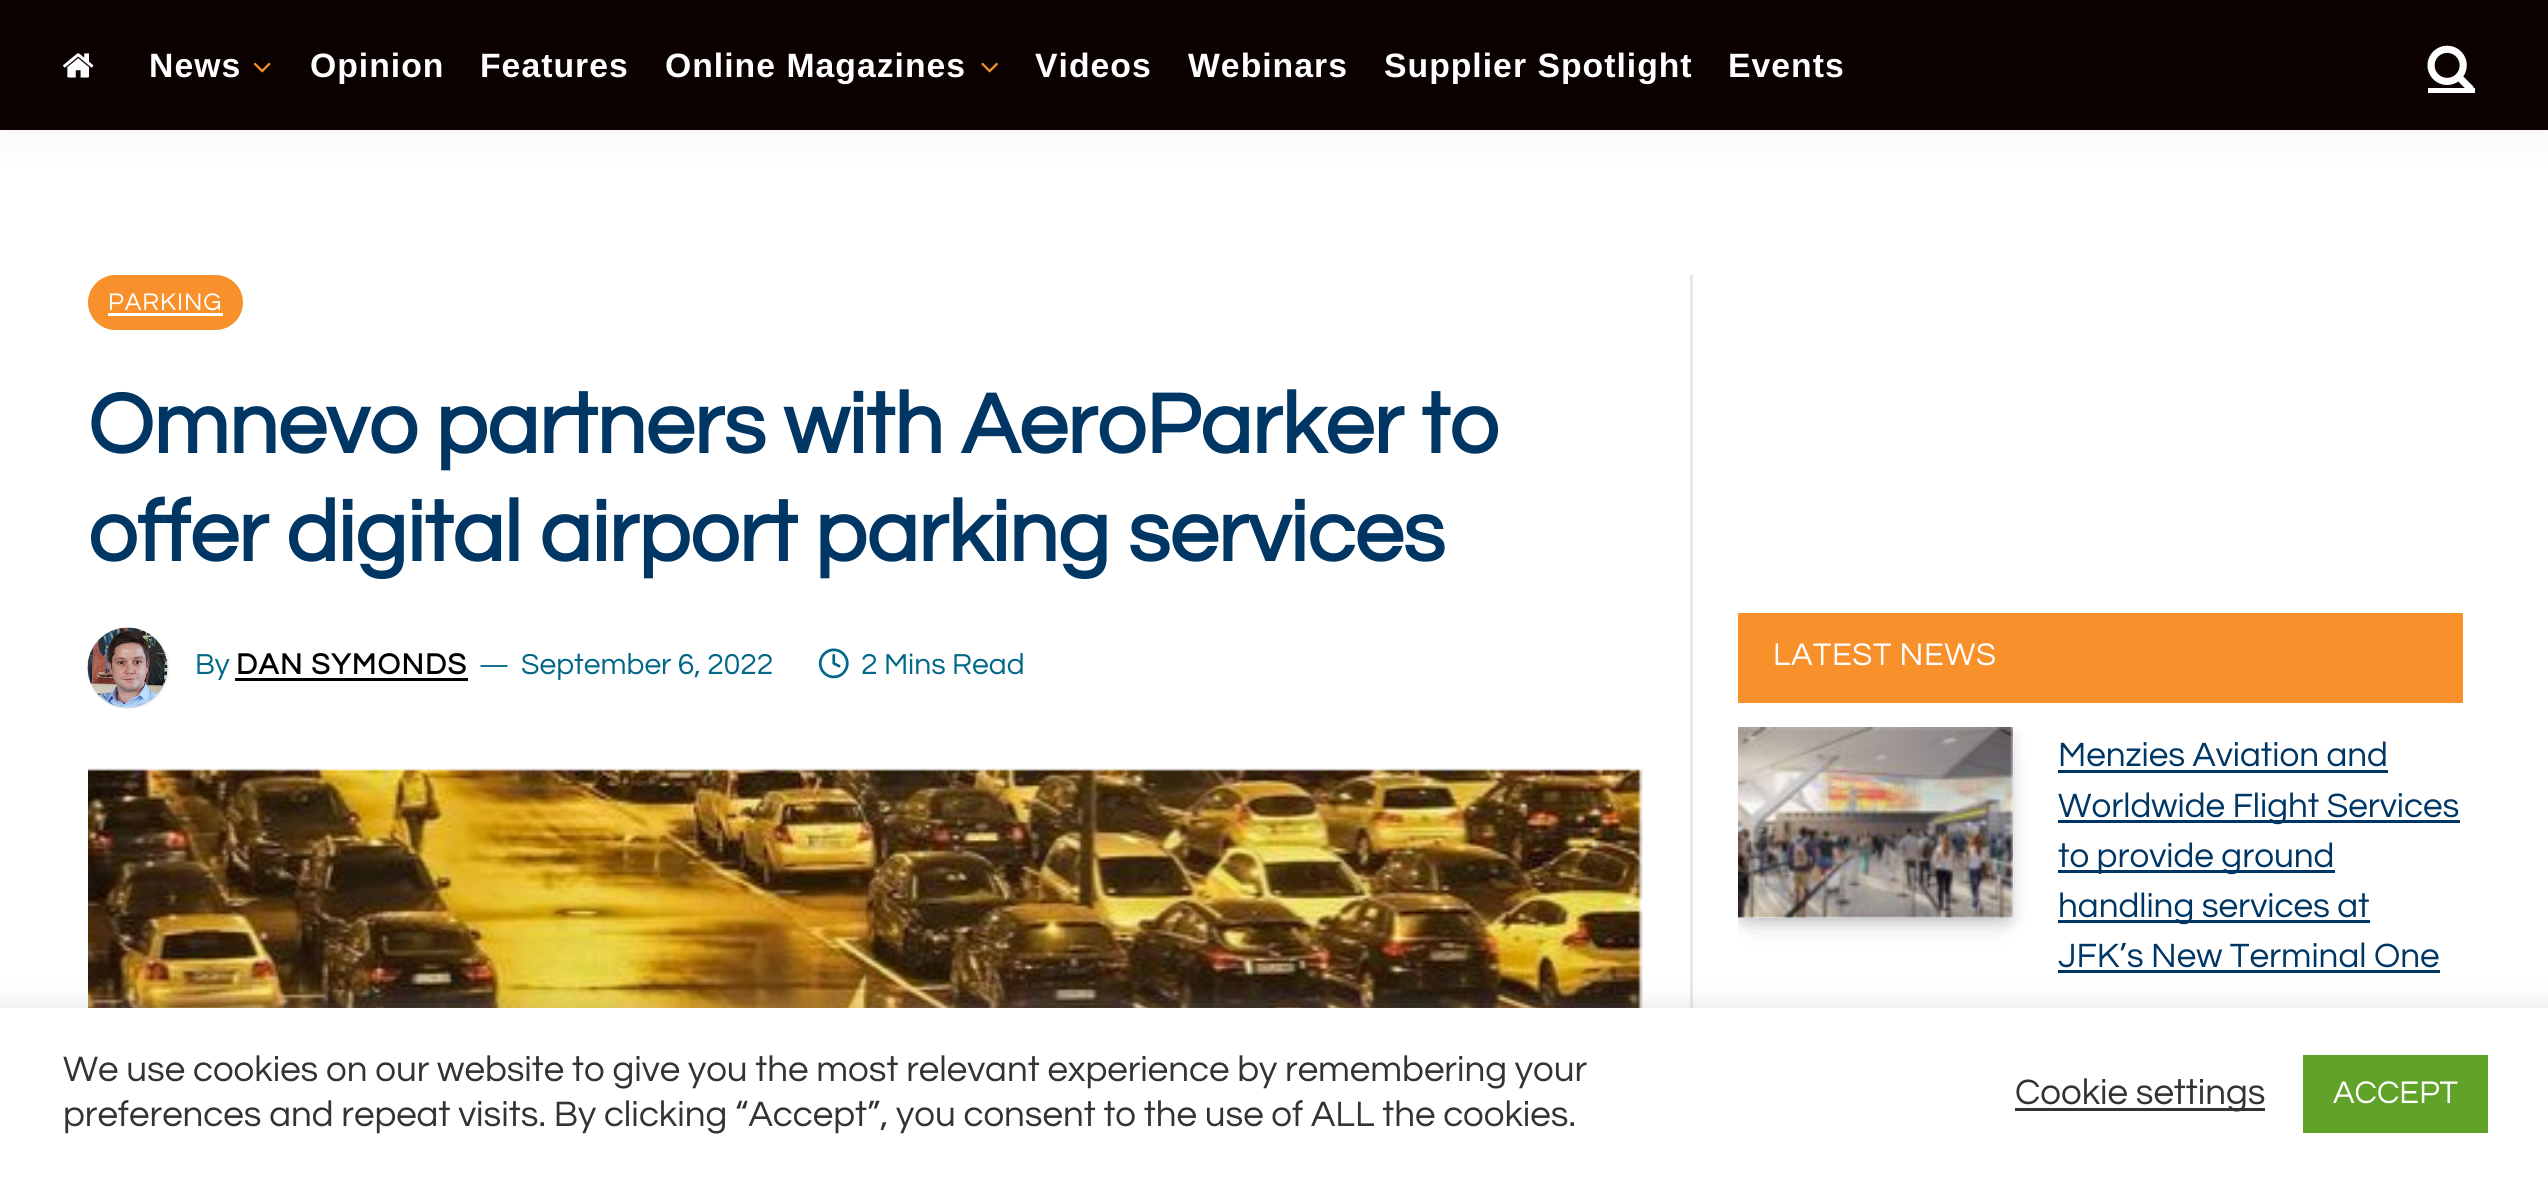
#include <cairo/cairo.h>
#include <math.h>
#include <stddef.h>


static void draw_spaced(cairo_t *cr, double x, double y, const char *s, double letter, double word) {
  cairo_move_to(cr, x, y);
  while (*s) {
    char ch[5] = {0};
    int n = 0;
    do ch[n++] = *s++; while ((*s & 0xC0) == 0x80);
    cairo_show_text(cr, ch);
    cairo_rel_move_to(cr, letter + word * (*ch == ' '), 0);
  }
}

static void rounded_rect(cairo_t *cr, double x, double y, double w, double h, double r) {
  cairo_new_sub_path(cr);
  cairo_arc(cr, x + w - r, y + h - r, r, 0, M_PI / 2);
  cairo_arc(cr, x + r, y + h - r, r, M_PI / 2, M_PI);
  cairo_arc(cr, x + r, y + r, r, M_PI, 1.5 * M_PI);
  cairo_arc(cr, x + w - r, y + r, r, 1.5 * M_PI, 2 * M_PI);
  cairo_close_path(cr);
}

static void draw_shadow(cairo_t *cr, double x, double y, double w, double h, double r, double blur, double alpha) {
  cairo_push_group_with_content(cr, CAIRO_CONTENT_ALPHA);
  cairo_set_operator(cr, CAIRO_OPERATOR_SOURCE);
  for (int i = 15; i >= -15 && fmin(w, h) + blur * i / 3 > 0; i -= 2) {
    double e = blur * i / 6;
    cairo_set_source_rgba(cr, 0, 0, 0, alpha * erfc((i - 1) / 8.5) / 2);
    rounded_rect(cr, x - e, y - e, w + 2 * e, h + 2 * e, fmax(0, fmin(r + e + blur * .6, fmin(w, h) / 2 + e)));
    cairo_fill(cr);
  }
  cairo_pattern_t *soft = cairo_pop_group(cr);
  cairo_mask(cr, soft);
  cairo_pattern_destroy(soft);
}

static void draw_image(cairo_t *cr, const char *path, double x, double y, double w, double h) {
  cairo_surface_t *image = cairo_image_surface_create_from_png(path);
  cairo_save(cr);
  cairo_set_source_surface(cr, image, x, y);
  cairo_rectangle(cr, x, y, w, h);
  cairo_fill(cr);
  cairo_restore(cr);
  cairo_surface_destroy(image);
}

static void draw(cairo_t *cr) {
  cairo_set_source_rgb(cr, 1, 1, 1);
  cairo_paint(cr);
  cairo_set_source_rgb(cr, 0, 0, 0);
  draw_shadow(cr, 0, 0, 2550, 130, 0, 25, 0.05);
  cairo_set_source_rgb(cr, 10 / 255.0, 1 / 255.0, 0);
  cairo_rectangle(cr, 0, 0, 2548, 130);
  cairo_fill(cr);
  draw_image(cr, "images/1.png", 63, 53, 31, 25);
  draw_image(cr, "images/2.png", 253, 62, 18, 11);
  draw_image(cr, "images/3.png", 981, 62, 17, 11);
  draw_image(cr, "images/4.png", 2427, 45, 47, 43);
  cairo_set_source_rgb(cr, 1, 1, 1);
  cairo_rectangle(cr, 2428, 88, 47, 5);
  cairo_fill(cr);
  cairo_set_source_rgb(cr, 248 / 255.0, 145 / 255.0, 43 / 255.0);
  rounded_rect(cr, 88, 275, 155, 55, 27.5);
  cairo_fill(cr);
  cairo_set_source_rgb(cr, 1, 1, 1);
  cairo_rectangle(cr, 108, 313, 115, 3);
  cairo_fill(cr);
  cairo_set_source_rgb(cr, 0, 0, 0);
  draw_shadow(cr, 88, 628, 80, 80, 40, 1, 0.2);
  draw_image(cr, "images/5.png", 87, 627, 81, 81);
  cairo_set_source_rgb(cr, 0, 0, 0);
  cairo_rectangle(cr, 235, 678, 233, 3);
  cairo_fill(cr);
  draw_image(cr, "images/6.png", 818, 648, 31, 31);
  draw_image(cr, "images/7.png", 88, 768, 1555, 240);
  cairo_set_source_rgb(cr, 232 / 255.0, 232 / 255.0, 232 / 255.0);
  cairo_rectangle(cr, 1690, 275, 3, 733);
  cairo_fill(cr);
  cairo_set_source_rgb(cr, 248 / 255.0, 145 / 255.0, 43 / 255.0);
  cairo_rectangle(cr, 1738, 613, 725, 90);
  cairo_fill(cr);
  cairo_save(cr);
  cairo_rectangle(cr, 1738, 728, 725, 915);
  cairo_clip(cr);
  cairo_set_fill_rule(cr, CAIRO_FILL_RULE_EVEN_ODD);
  cairo_new_path(cr);
  cairo_move_to(cr, 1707, 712);
  cairo_line_to(cr, 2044, 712);
  cairo_line_to(cr, 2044, 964);
  cairo_line_to(cr, 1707, 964);
  cairo_close_path(cr);
  cairo_move_to(cr, 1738, 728);
  cairo_line_to(cr, 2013, 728);
  cairo_line_to(cr, 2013, 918);
  cairo_line_to(cr, 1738, 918);
  cairo_close_path(cr);
  cairo_clip(cr);
  cairo_set_source_rgb(cr, 7 / 255.0, 10 / 255.0, 25 / 255.0);
  draw_shadow(cr, 1753, 758, 245, 160, 0, 15, 0.2);
  cairo_restore(cr);
  cairo_save(cr);
  cairo_rectangle(cr, 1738, 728, 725, 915);
  cairo_clip(cr);
  cairo_set_fill_rule(cr, CAIRO_FILL_RULE_EVEN_ODD);
  cairo_new_path(cr);
  cairo_move_to(cr, 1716, 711);
  cairo_line_to(cr, 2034, 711);
  cairo_line_to(cr, 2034, 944);
  cairo_line_to(cr, 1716, 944);
  cairo_close_path(cr);
  cairo_move_to(cr, 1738, 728);
  cairo_line_to(cr, 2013, 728);
  cairo_line_to(cr, 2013, 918);
  cairo_line_to(cr, 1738, 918);
  cairo_close_path(cr);
  cairo_clip(cr);
  cairo_set_source_rgb(cr, 7 / 255.0, 10 / 255.0, 25 / 255.0);
  draw_shadow(cr, 1740, 735, 270, 185, 0, 7.5, 0.2);
  cairo_restore(cr);
  draw_image(cr, "images/8.png", 1738, 727, 275, 191);
  cairo_set_source_rgb(cr, 0, 54 / 255.0, 100 / 255.0);
  cairo_rectangle(cr, 2058, 770, 330, 3);
  cairo_fill(cr);
  cairo_rectangle(cr, 2058, 820, 402, 3);
  cairo_fill(cr);
  cairo_rectangle(cr, 2058, 870, 277, 3);
  cairo_fill(cr);
  cairo_rectangle(cr, 2058, 920, 312, 3);
  cairo_fill(cr);
  cairo_rectangle(cr, 2058, 970, 382, 3);
  cairo_fill(cr);
  cairo_set_source_rgb(cr, 172 / 255.0, 171 / 255.0, 171 / 255.0);
  draw_shadow(cr, 0, 1005, 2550, 173, 0, 12.5, 0.3);
  cairo_set_source_rgb(cr, 1, 1, 1);
  cairo_rectangle(cr, 0, 1008, 2548, 171);
  cairo_fill(cr);
  cairo_set_source_rgb(cr, 51 / 255.0, 51 / 255.0, 51 / 255.0);
  cairo_rectangle(cr, 2015, 1108, 250, 3);
  cairo_fill(cr);
  cairo_set_source_rgb(cr, 97 / 255.0, 162 / 255.0, 41 / 255.0);
  cairo_rectangle(cr, 2303, 1055, 185, 78);
  cairo_fill(cr);
  cairo_select_font_face(cr, "Liberation Sans", CAIRO_FONT_SLANT_NORMAL, CAIRO_FONT_WEIGHT_BOLD);
  cairo_set_font_size(cr, 33.75);
  cairo_set_source_rgb(cr, 1, 1, 1);
  draw_spaced(cr, 149, 77, "News", 1, 0);
  draw_spaced(cr, 310, 77, "Opinion", 1, 0);
  draw_spaced(cr, 480, 77, "Features", 1, 0);
  draw_spaced(cr, 665, 77, "Online Magazines", 1, 0);
  draw_spaced(cr, 1035, 77, "Videos", 1, 0);
  draw_spaced(cr, 1188, 77, "Webinars", 1, 0);
  draw_spaced(cr, 1384, 77, "Supplier Spotlight", 1, 0);
  draw_spaced(cr, 1728, 77, "Events", 1, 0);
  cairo_select_font_face(cr, "Questrial", CAIRO_FONT_SLANT_NORMAL, CAIRO_FONT_WEIGHT_NORMAL);
  cairo_set_font_size(cr, 25);
  draw_spaced(cr, 108, 310, "PARKING", 1, 0);
  cairo_select_font_face(cr, "Questrial", CAIRO_FONT_SLANT_NORMAL, CAIRO_FONT_WEIGHT_BOLD);
  cairo_set_font_size(cr, 87.5);
  cairo_set_source_rgb(cr, 0, 54 / 255.0, 100 / 255.0);
  draw_spaced(cr, 88, 453, "Omnevo partners with AeroParker to", -0.45, 0);
  draw_spaced(cr, 88, 561, "offer digital airport parking services", -0.45, 0);
  cairo_select_font_face(cr, "Questrial", CAIRO_FONT_SLANT_NORMAL, CAIRO_FONT_WEIGHT_NORMAL);
  cairo_set_font_size(cr, 30);
  cairo_set_source_rgb(cr, 0, 103 / 255.0, 136 / 255.0);
  cairo_move_to(cr, 195, 674);
  cairo_show_text(cr, "By");
  cairo_select_font_face(cr, "Questrial", CAIRO_FONT_SLANT_NORMAL, CAIRO_FONT_WEIGHT_BOLD);
  cairo_set_source_rgb(cr, 0, 0, 0);
  draw_spaced(cr, 236, 674, "DAN SYMONDS", 1.5, 0);
  cairo_select_font_face(cr, "Questrial", CAIRO_FONT_SLANT_NORMAL, CAIRO_FONT_WEIGHT_NORMAL);
  cairo_set_font_size(cr, 27);
  cairo_set_source_rgb(cr, 0, 103 / 255.0, 136 / 255.0);
  cairo_move_to(cr, 479, 674);
  cairo_show_text(cr, "—");
  cairo_set_font_size(cr, 30);
  cairo_move_to(cr, 521, 674);
  cairo_show_text(cr, "September 6, 2022");
  cairo_move_to(cr, 861, 674);
  cairo_show_text(cr, "2 Mins Read");
  cairo_set_font_size(cr, 32.5);
  cairo_set_source_rgb(cr, 1, 1, 1);
  draw_spaced(cr, 1773, 665, "LATEST NEWS", 0.6, 0);
  cairo_set_font_size(cr, 35);
  cairo_set_source_rgb(cr, 0, 54 / 255.0, 100 / 255.0);
  cairo_move_to(cr, 2058, 766);
  cairo_show_text(cr, "Menzies Aviation and");
  cairo_move_to(cr, 2058, 817);
  cairo_show_text(cr, "Worldwide Flight Services");
  cairo_move_to(cr, 2058, 867);
  cairo_show_text(cr, "to provide ground");
  cairo_move_to(cr, 2058, 917);
  cairo_show_text(cr, "handling services at");
  cairo_move_to(cr, 2058, 967);
  cairo_show_text(cr, "JFK’s New Terminal One");
  cairo_set_font_size(cr, 36.65);
  cairo_set_source_rgb(cr, 51 / 255.0, 51 / 255.0, 51 / 255.0);
  cairo_move_to(cr, 63, 1081);
  cairo_show_text(cr, "We use cookies on our website to give you the most relevant experience by remembering your");
  cairo_move_to(cr, 63, 1126);
  cairo_show_text(cr, "preferences and repeat visits. By clicking “Accept”, you consent to the use of ALL the cookies.");
  cairo_move_to(cr, 2015, 1104);
  cairo_show_text(cr, "Cookie settings");
  cairo_set_font_size(cr, 32.5);
  cairo_set_source_rgb(cr, 1, 1, 1);
  cairo_move_to(cr, 2333, 1103);
  cairo_show_text(cr, "ACCEPT");
}

int main(void) {
  cairo_surface_t *surface = cairo_image_surface_create(CAIRO_FORMAT_RGB24, 2548, 1179);
  cairo_t *cr = cairo_create(surface);
  cairo_font_options_t *options = cairo_font_options_create();
  cairo_font_options_set_hint_metrics(options, CAIRO_HINT_METRICS_OFF);
  cairo_font_options_set_hint_style(options, CAIRO_HINT_STYLE_NONE);
  cairo_set_font_options(cr, options);
  cairo_set_miter_limit(cr, 4);
  draw(cr);
  cairo_surface_write_to_png(surface, "out.png");
  cairo_font_options_destroy(options);
  cairo_destroy(cr);
  cairo_surface_destroy(surface);
  return 0;
}
